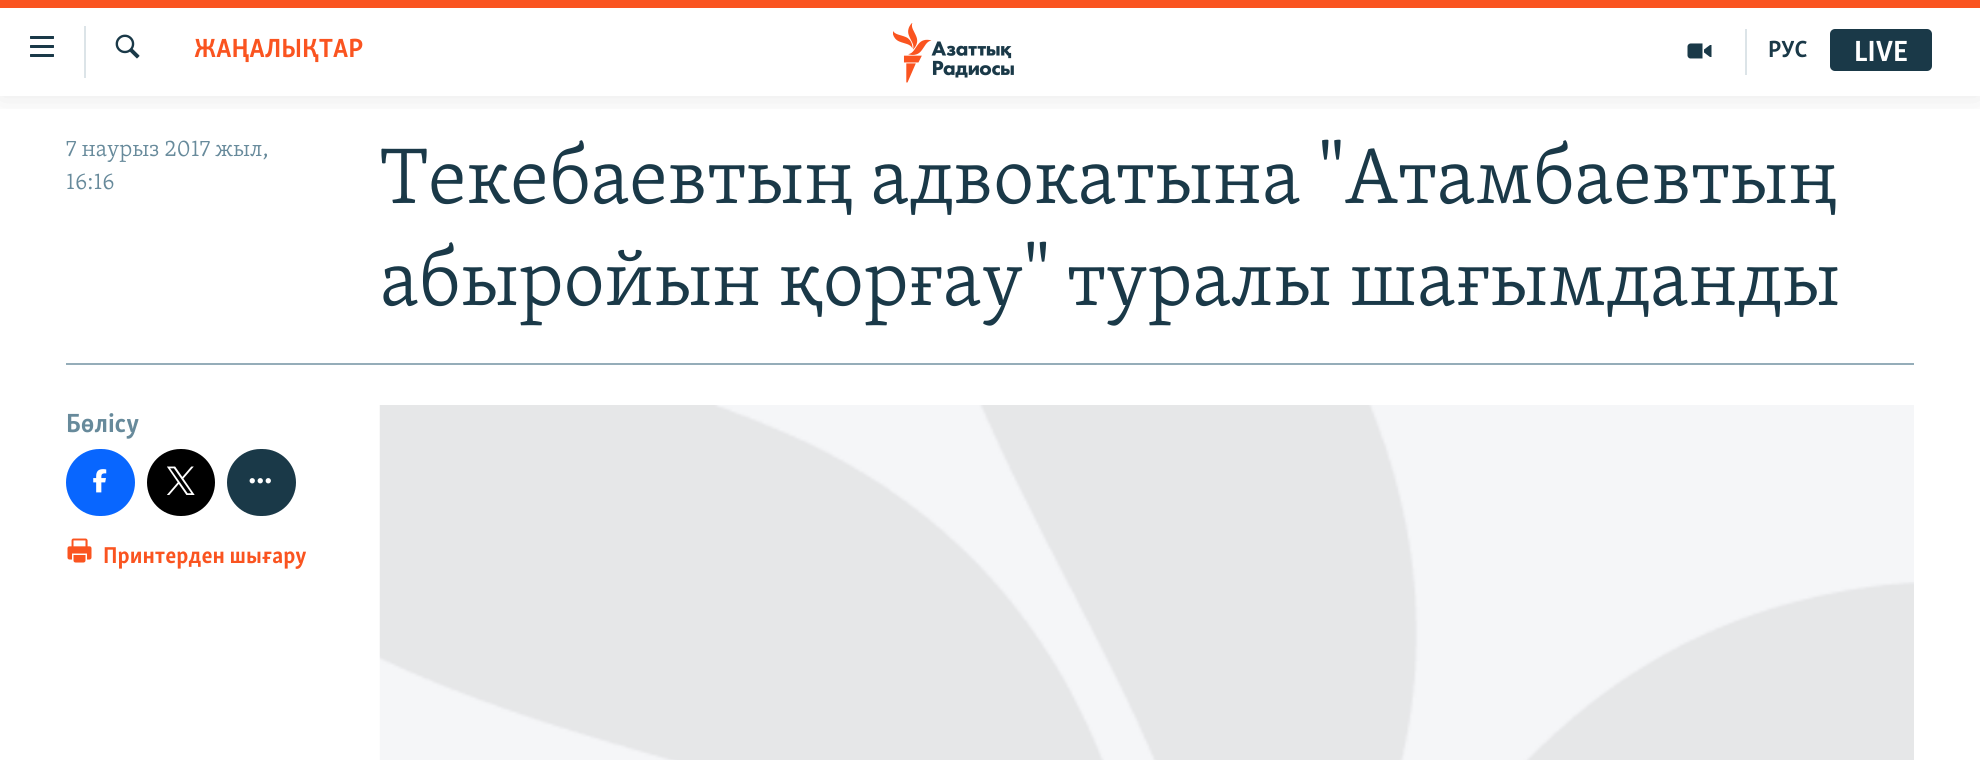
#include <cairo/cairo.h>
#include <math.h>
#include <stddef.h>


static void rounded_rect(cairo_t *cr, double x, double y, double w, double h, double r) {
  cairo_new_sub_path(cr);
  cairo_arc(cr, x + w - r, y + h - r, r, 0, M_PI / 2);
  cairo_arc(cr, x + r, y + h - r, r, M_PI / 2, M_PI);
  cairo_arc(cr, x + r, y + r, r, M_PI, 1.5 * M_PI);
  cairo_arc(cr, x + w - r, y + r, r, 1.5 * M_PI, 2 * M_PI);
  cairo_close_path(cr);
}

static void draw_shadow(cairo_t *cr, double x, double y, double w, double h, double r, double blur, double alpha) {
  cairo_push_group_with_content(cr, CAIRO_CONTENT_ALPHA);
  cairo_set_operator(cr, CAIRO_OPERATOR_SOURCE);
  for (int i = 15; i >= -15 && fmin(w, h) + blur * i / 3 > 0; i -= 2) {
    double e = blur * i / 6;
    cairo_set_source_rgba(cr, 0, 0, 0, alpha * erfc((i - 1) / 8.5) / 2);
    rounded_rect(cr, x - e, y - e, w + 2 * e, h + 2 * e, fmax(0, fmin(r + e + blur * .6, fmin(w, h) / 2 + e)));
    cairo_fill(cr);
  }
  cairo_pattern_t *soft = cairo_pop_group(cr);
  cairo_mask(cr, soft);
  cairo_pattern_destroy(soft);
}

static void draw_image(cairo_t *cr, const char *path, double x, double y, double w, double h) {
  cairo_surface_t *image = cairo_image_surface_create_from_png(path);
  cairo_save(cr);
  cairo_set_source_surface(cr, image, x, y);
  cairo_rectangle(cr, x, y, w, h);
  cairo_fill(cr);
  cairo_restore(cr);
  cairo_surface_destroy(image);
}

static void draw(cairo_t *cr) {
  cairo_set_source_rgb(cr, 1, 1, 1);
  cairo_paint(cr);
  cairo_save(cr);
  cairo_rectangle(cr, 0, 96, 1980, 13);
  cairo_clip(cr);
  cairo_set_source_rgb(cr, 0, 0, 0);
  draw_shadow(cr, 0, 0, 1980, 96, 0, 15, 0.1);
  cairo_restore(cr);
  cairo_set_source_rgb(cr, 250 / 255.0, 84 / 255.0, 32 / 255.0);
  cairo_rectangle(cr, 0, 0, 1980, 8);
  cairo_fill(cr);
  draw_image(cr, "images/1.png", 30, 36, 24, 21);
  cairo_set_source_rgb(cr, 220 / 255.0, 228 / 255.0, 232 / 255.0);
  cairo_rectangle(cr, 84, 26, 2, 52);
  cairo_fill(cr);
  draw_image(cr, "images/2.png", 115, 34, 25, 25);
  draw_image(cr, "images/3.png", 893, 23, 121, 60);
  cairo_rectangle(cr, 1745, 29, 2, 46);
  cairo_fill(cr);
  draw_image(cr, "images/4.png", 1687, 43, 25, 16);
  cairo_set_source_rgb(cr, 26 / 255.0, 57 / 255.0, 72 / 255.0);
  rounded_rect(cr, 1830, 29, 102, 42, 5);
  cairo_fill(cr);
  cairo_set_source_rgb(cr, 149 / 255.0, 173 / 255.0, 185 / 255.0);
  cairo_rectangle(cr, 66, 363, 1848, 2);
  cairo_fill(cr);
  cairo_set_source_rgb(cr, 8 / 255.0, 102 / 255.0, 1);
  rounded_rect(cr, 66, 449, 69, 67, 33.5);
  cairo_fill(cr);
  draw_image(cr, "images/5.png", 93, 469, 14, 24);
  cairo_set_source_rgb(cr, 0, 0, 0);
  rounded_rect(cr, 147, 449, 68, 67, 33.5);
  cairo_fill(cr);
  draw_image(cr, "images/6.png", 167, 466, 28, 29);
  cairo_set_source_rgb(cr, 26 / 255.0, 57 / 255.0, 72 / 255.0);
  rounded_rect(cr, 227, 449, 69, 67, 33.5);
  cairo_fill(cr);
  draw_image(cr, "images/7.png", 249, 478, 22, 6);
  draw_image(cr, "images/8.png", 67, 538, 25, 25);
  draw_image(cr, "images/9.png", 379, 405, 1535, 355);
  cairo_select_font_face(cr, "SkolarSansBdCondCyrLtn", CAIRO_FONT_SLANT_NORMAL, CAIRO_FONT_WEIGHT_BOLD);
  cairo_set_font_size(cr, 27);
  cairo_set_source_rgb(cr, 250 / 255.0, 84 / 255.0, 32 / 255.0);
  cairo_move_to(cr, 194, 57);
  cairo_show_text(cr, "ЖАҢАЛЫҚТАР");
  cairo_set_font_size(cr, 24);
  cairo_set_source_rgb(cr, 26 / 255.0, 57 / 255.0, 72 / 255.0);
  cairo_move_to(cr, 1768, 57);
  cairo_show_text(cr, "РУС");
  cairo_set_font_size(cr, 30);
  cairo_set_source_rgb(cr, 1, 1, 1);
  cairo_move_to(cr, 1854, 61);
  cairo_show_text(cr, "LIVE");
  cairo_select_font_face(cr, "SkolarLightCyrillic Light", CAIRO_FONT_SLANT_NORMAL, CAIRO_FONT_WEIGHT_NORMAL);
  cairo_set_font_size(cr, 23.6);
  cairo_set_source_rgb(cr, 103 / 255.0, 138 / 255.0, 155 / 255.0);
  cairo_move_to(cr, 66, 156);
  cairo_show_text(cr, "7 наурыз 2017 жыл,");
  cairo_move_to(cr, 66, 189);
  cairo_show_text(cr, "16:16");
  cairo_set_font_size(cr, 81);
  cairo_set_source_rgb(cr, 26 / 255.0, 57 / 255.0, 72 / 255.0);
  cairo_move_to(cr, 380, 203);
  cairo_show_text(cr, "Текебаевтың адвокатына \"Атамбаевтың");
  cairo_move_to(cr, 380, 305);
  cairo_show_text(cr, "абыройын қорғау\" туралы шағымданды");
  cairo_select_font_face(cr, "SkolarSansBdCondCyrLtn", CAIRO_FONT_SLANT_NORMAL, CAIRO_FONT_WEIGHT_BOLD);
  cairo_set_font_size(cr, 27);
  cairo_set_source_rgb(cr, 103 / 255.0, 138 / 255.0, 155 / 255.0);
  cairo_move_to(cr, 66, 432);
  cairo_show_text(cr, "Бөлісу");
  cairo_set_font_size(cr, 23.6);
  cairo_set_source_rgb(cr, 250 / 255.0, 84 / 255.0, 32 / 255.0);
  cairo_move_to(cr, 103, 563);
  cairo_show_text(cr, "Принтерден шығару");
}

int main(void) {
  cairo_surface_t *surface = cairo_image_surface_create(CAIRO_FORMAT_RGB24, 1980, 760);
  cairo_t *cr = cairo_create(surface);
  cairo_font_options_t *options = cairo_font_options_create();
  cairo_font_options_set_hint_metrics(options, CAIRO_HINT_METRICS_OFF);
  cairo_font_options_set_hint_style(options, CAIRO_HINT_STYLE_NONE);
  cairo_set_font_options(cr, options);
  cairo_set_miter_limit(cr, 4);
  draw(cr);
  cairo_surface_write_to_png(surface, "out.png");
  cairo_font_options_destroy(options);
  cairo_destroy(cr);
  cairo_surface_destroy(surface);
  return 0;
}
